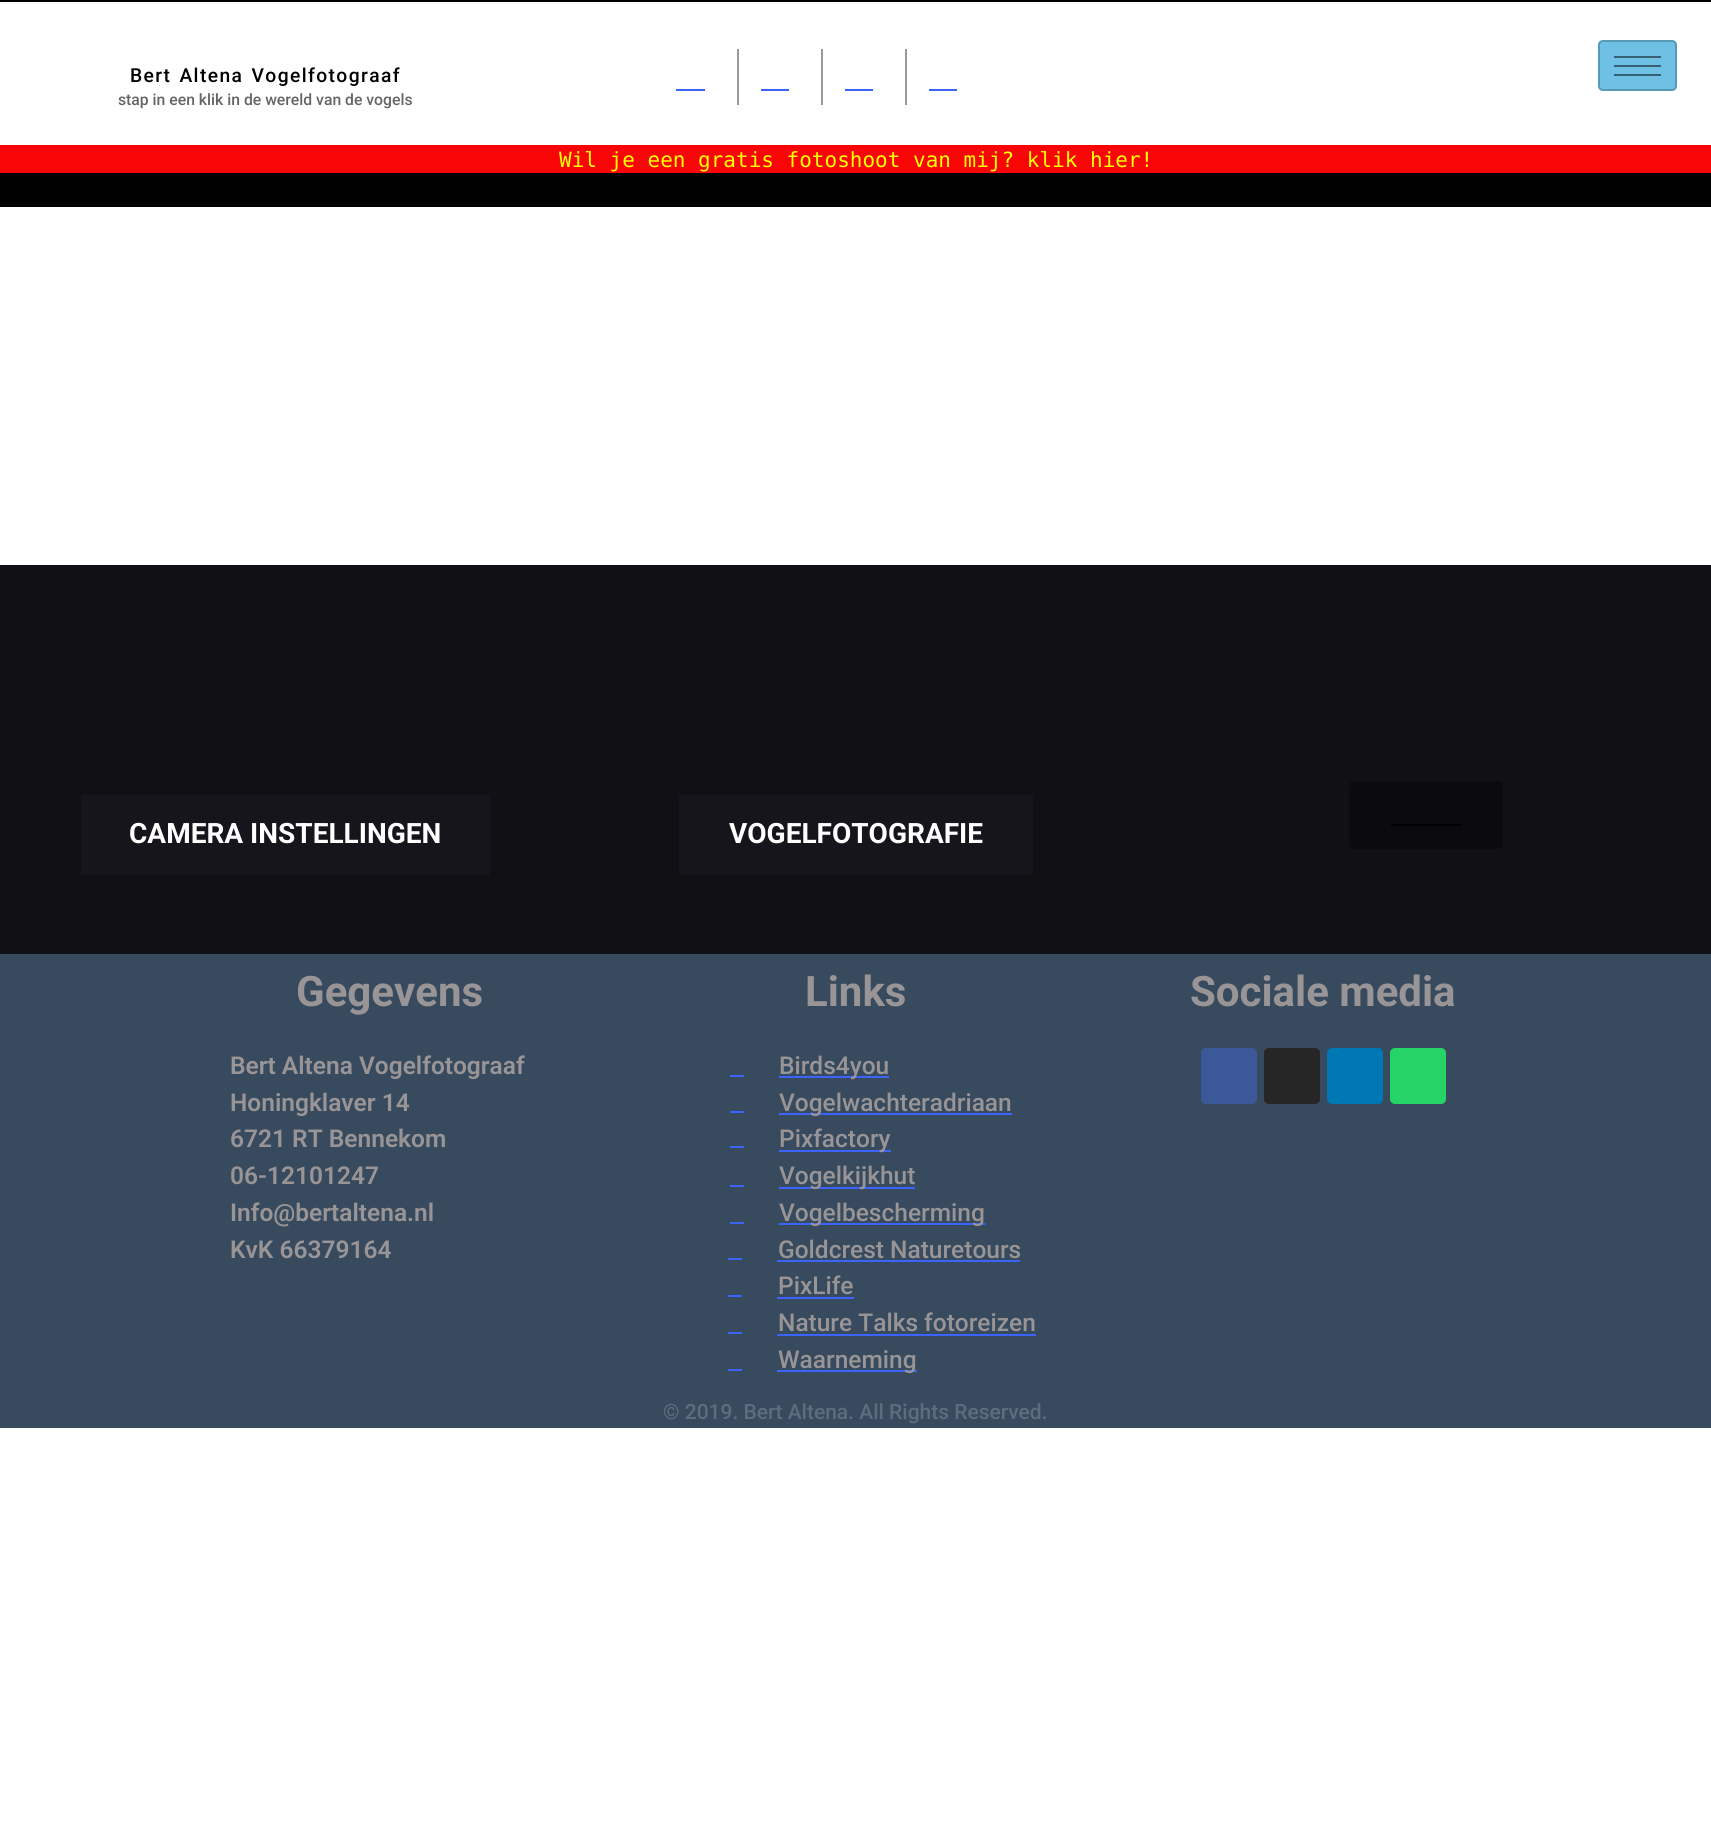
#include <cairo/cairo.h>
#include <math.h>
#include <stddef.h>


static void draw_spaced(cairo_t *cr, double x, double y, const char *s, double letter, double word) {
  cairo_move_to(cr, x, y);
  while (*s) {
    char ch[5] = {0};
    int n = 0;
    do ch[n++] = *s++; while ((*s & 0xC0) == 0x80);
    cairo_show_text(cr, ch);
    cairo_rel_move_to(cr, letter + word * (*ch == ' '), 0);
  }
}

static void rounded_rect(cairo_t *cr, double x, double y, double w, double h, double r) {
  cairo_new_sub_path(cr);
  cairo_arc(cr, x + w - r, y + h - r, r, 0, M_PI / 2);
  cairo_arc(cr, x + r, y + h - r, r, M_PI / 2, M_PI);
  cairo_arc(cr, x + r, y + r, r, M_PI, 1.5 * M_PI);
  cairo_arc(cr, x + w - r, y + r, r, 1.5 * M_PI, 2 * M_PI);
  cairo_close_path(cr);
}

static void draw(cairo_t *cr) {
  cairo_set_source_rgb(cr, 1, 1, 1);
  cairo_paint(cr);
  cairo_set_source_rgb(cr, 0, 0, 0);
  cairo_rectangle(cr, 0, 0, 1711, 2);
  cairo_fill(cr);
  cairo_set_source_rgb(cr, 60 / 255.0, 99 / 255.0, 252 / 255.0);
  cairo_rectangle(cr, 676, 89, 29, 2);
  cairo_fill(cr);
  cairo_set_source_rgb(cr, 153 / 255.0, 153 / 255.0, 153 / 255.0);
  cairo_rectangle(cr, 737, 49, 2, 56);
  cairo_fill(cr);
  cairo_set_source_rgb(cr, 60 / 255.0, 99 / 255.0, 252 / 255.0);
  cairo_rectangle(cr, 761, 89, 28, 2);
  cairo_fill(cr);
  cairo_set_source_rgb(cr, 153 / 255.0, 153 / 255.0, 153 / 255.0);
  cairo_rectangle(cr, 821, 49, 2, 56);
  cairo_fill(cr);
  cairo_set_source_rgb(cr, 60 / 255.0, 99 / 255.0, 252 / 255.0);
  cairo_rectangle(cr, 845, 89, 28, 2);
  cairo_fill(cr);
  cairo_set_source_rgb(cr, 153 / 255.0, 153 / 255.0, 153 / 255.0);
  cairo_rectangle(cr, 905, 49, 2, 56);
  cairo_fill(cr);
  cairo_set_source_rgb(cr, 60 / 255.0, 99 / 255.0, 252 / 255.0);
  cairo_rectangle(cr, 929, 89, 28, 2);
  cairo_fill(cr);
  cairo_set_source_rgb(cr, 110 / 255.0, 193 / 255.0, 228 / 255.0);
  rounded_rect(cr, 1598, 40, 79, 51, 5);
  cairo_fill(cr);
  rounded_rect(cr, 1599, 41, 77, 49, 4);
  cairo_set_source_rgba(cr, 0, 0, 0, 0.2);
  cairo_stroke(cr);
  cairo_set_source_rgb(cr, 55 / 255.0, 97 / 255.0, 114 / 255.0);
  cairo_rectangle(cr, 1614, 56, 47, 2);
  cairo_fill(cr);
  cairo_rectangle(cr, 1614, 65, 47, 2);
  cairo_fill(cr);
  cairo_rectangle(cr, 1614, 74, 47, 2);
  cairo_fill(cr);
  cairo_set_source_rgb(cr, 248 / 255.0, 5 / 255.0, 5 / 255.0);
  cairo_rectangle(cr, 0, 145, 1711, 28);
  cairo_fill(cr);
  cairo_set_source_rgb(cr, 0, 0, 0);
  cairo_rectangle(cr, 0, 173, 1711, 34);
  cairo_fill(cr);
  cairo_set_source_rgb(cr, 16 / 255.0, 16 / 255.0, 21 / 255.0);
  cairo_rectangle(cr, 0, 565, 1711, 389);
  cairo_fill(cr);
  cairo_set_source_rgb(cr, 21 / 255.0, 21 / 255.0, 27 / 255.0);
  cairo_rectangle(cr, 81, 795, 409, 80);
  cairo_fill(cr);
  cairo_rectangle(cr, 679, 795, 354, 80);
  cairo_fill(cr);
  cairo_set_source_rgb(cr, 11 / 255.0, 11 / 255.0, 14 / 255.0);
  rounded_rect(cr, 1349, 781, 154, 68, 5);
  cairo_fill(cr);
  cairo_set_source_rgb(cr, 0, 0, 0);
  cairo_rectangle(cr, 1391, 824, 70, 2);
  cairo_fill(cr);
  cairo_set_source_rgb(cr, 55 / 255.0, 74 / 255.0, 94 / 255.0);
  cairo_rectangle(cr, 0, 954, 1711, 474);
  cairo_fill(cr);
  cairo_set_source_rgb(cr, 60 / 255.0, 99 / 255.0, 252 / 255.0);
  cairo_rectangle(cr, 730, 1075, 14, 2);
  cairo_fill(cr);
  cairo_rectangle(cr, 779, 1076, 110, 2);
  cairo_fill(cr);
  cairo_rectangle(cr, 730, 1111, 14, 2);
  cairo_fill(cr);
  cairo_rectangle(cr, 779, 1113, 233, 2);
  cairo_fill(cr);
  cairo_rectangle(cr, 730, 1146, 14, 2);
  cairo_fill(cr);
  cairo_rectangle(cr, 779, 1150, 112, 2);
  cairo_fill(cr);
  cairo_rectangle(cr, 730, 1185, 14, 2);
  cairo_fill(cr);
  cairo_rectangle(cr, 779, 1187, 136, 2);
  cairo_fill(cr);
  cairo_rectangle(cr, 730, 1222, 14, 2);
  cairo_fill(cr);
  cairo_rectangle(cr, 779, 1223, 206, 2);
  cairo_fill(cr);
  cairo_rectangle(cr, 728, 1258, 14, 2);
  cairo_fill(cr);
  cairo_rectangle(cr, 777, 1260, 243, 2);
  cairo_fill(cr);
  cairo_rectangle(cr, 777, 1297, 77, 2);
  cairo_fill(cr);
  cairo_rectangle(cr, 728, 1295, 14, 2);
  cairo_fill(cr);
  cairo_rectangle(cr, 777, 1334, 259, 2);
  cairo_fill(cr);
  cairo_rectangle(cr, 728, 1332, 14, 2);
  cairo_fill(cr);
  cairo_rectangle(cr, 728, 1369, 14, 2);
  cairo_fill(cr);
  cairo_rectangle(cr, 777, 1370, 140, 2);
  cairo_fill(cr);
  cairo_set_source_rgb(cr, 59 / 255.0, 89 / 255.0, 152 / 255.0);
  rounded_rect(cr, 1201, 1048, 56, 56, 5);
  cairo_fill(cr);
  cairo_set_source_rgb(cr, 38 / 255.0, 38 / 255.0, 38 / 255.0);
  rounded_rect(cr, 1264, 1048, 56, 56, 5);
  cairo_fill(cr);
  cairo_set_source_rgb(cr, 0, 119 / 255.0, 181 / 255.0);
  rounded_rect(cr, 1327, 1048, 56, 56, 5);
  cairo_fill(cr);
  cairo_set_source_rgb(cr, 37 / 255.0, 211 / 255.0, 102 / 255.0);
  rounded_rect(cr, 1390, 1048, 56, 56, 5);
  cairo_fill(cr);
  cairo_select_font_face(cr, "Roboto Medium", CAIRO_FONT_SLANT_NORMAL, CAIRO_FONT_WEIGHT_NORMAL);
  cairo_set_font_size(cr, 19.25);
  cairo_set_source_rgb(cr, 0, 0, 0);
  draw_spaced(cr, 130, 82, "Bert Altena Vogelfotograaf", 1.4, 2);
  cairo_set_font_size(cr, 15.75);
  cairo_set_source_rgb(cr, 101 / 255.0, 101 / 255.0, 101 / 255.0);
  cairo_move_to(cr, 118, 105);
  cairo_show_text(cr, "stap in een klik in de wereld van de vogels");
  cairo_select_font_face(cr, "DejaVu Sans Mono", CAIRO_FONT_SLANT_NORMAL, CAIRO_FONT_WEIGHT_NORMAL);
  cairo_set_font_size(cr, 21);
  cairo_set_source_rgb(cr, 1, 1, 0);
  cairo_move_to(cr, 559, 167);
  cairo_show_text(cr, "Wil je een gratis fotoshoot van mij? klik hier!");
  cairo_select_font_face(cr, "Roboto", CAIRO_FONT_SLANT_NORMAL, CAIRO_FONT_WEIGHT_BOLD);
  cairo_set_font_size(cr, 28);
  cairo_set_source_rgb(cr, 1, 1, 1);
  cairo_move_to(cr, 129, 843);
  cairo_show_text(cr, "CAMERA INSTELLINGEN");
  cairo_move_to(cr, 729, 843);
  cairo_show_text(cr, "VOGELFOTOGRAFIE");
  cairo_set_font_size(cr, 42);
  cairo_set_source_rgb(cr, 153 / 255.0, 149 / 255.0, 150 / 255.0);
  cairo_move_to(cr, 296, 1006);
  cairo_show_text(cr, "Gegevens");
  cairo_select_font_face(cr, "Roboto SemiBold", CAIRO_FONT_SLANT_NORMAL, CAIRO_FONT_WEIGHT_NORMAL);
  cairo_set_font_size(cr, 24.5);
  cairo_move_to(cr, 230, 1074);
  cairo_show_text(cr, "Bert Altena Vogelfotograaf");
  cairo_move_to(cr, 230, 1111);
  cairo_show_text(cr, "Honingklaver 14");
  cairo_move_to(cr, 230, 1147);
  cairo_show_text(cr, "6721 RT Bennekom");
  cairo_move_to(cr, 230, 1184);
  cairo_show_text(cr, "06-12101247");
  cairo_move_to(cr, 230, 1221);
  cairo_show_text(cr, "Info@bertaltena.nl");
  cairo_move_to(cr, 230, 1258);
  cairo_show_text(cr, "KvK 66379164");
  cairo_select_font_face(cr, "Roboto", CAIRO_FONT_SLANT_NORMAL, CAIRO_FONT_WEIGHT_BOLD);
  cairo_set_font_size(cr, 42);
  cairo_move_to(cr, 805, 1006);
  cairo_show_text(cr, "Links");
  cairo_select_font_face(cr, "Roboto Medium", CAIRO_FONT_SLANT_NORMAL, CAIRO_FONT_WEIGHT_NORMAL);
  cairo_set_font_size(cr, 24.5);
  cairo_move_to(cr, 779, 1074);
  cairo_show_text(cr, "Birds4you");
  cairo_move_to(cr, 779, 1111);
  cairo_show_text(cr, "Vogelwachteradriaan");
  cairo_move_to(cr, 779, 1147);
  cairo_show_text(cr, "Pixfactory");
  cairo_move_to(cr, 779, 1184);
  cairo_show_text(cr, "Vogelkijkhut");
  cairo_move_to(cr, 779, 1221);
  cairo_show_text(cr, "Vogelbescherming");
  cairo_move_to(cr, 778, 1258);
  cairo_show_text(cr, "Goldcrest Naturetours");
  cairo_move_to(cr, 778, 1294);
  cairo_show_text(cr, "PixLife");
  cairo_move_to(cr, 778, 1331);
  cairo_show_text(cr, "Nature Talks fotoreizen");
  cairo_move_to(cr, 778, 1368);
  cairo_show_text(cr, "Waarneming");
  cairo_select_font_face(cr, "Roboto", CAIRO_FONT_SLANT_NORMAL, CAIRO_FONT_WEIGHT_BOLD);
  cairo_set_font_size(cr, 42);
  cairo_move_to(cr, 1190, 1006);
  cairo_show_text(cr, "Sociale media");
  cairo_select_font_face(cr, "Roboto Medium", CAIRO_FONT_SLANT_NORMAL, CAIRO_FONT_WEIGHT_NORMAL);
  cairo_set_font_size(cr, 21);
  cairo_set_source_rgb(cr, 94 / 255.0, 109 / 255.0, 126 / 255.0);
  cairo_move_to(cr, 663, 1419);
  cairo_show_text(cr, "© 2019. Bert Altena. All Rights Reserved.");
}

int main(void) {
  cairo_surface_t *surface = cairo_image_surface_create(CAIRO_FORMAT_RGB24, 1711, 1836);
  cairo_t *cr = cairo_create(surface);
  cairo_font_options_t *options = cairo_font_options_create();
  cairo_font_options_set_hint_metrics(options, CAIRO_HINT_METRICS_OFF);
  cairo_font_options_set_hint_style(options, CAIRO_HINT_STYLE_NONE);
  cairo_set_font_options(cr, options);
  cairo_set_miter_limit(cr, 4);
  draw(cr);
  cairo_surface_write_to_png(surface, "out.png");
  cairo_font_options_destroy(options);
  cairo_destroy(cr);
  cairo_surface_destroy(surface);
  return 0;
}
